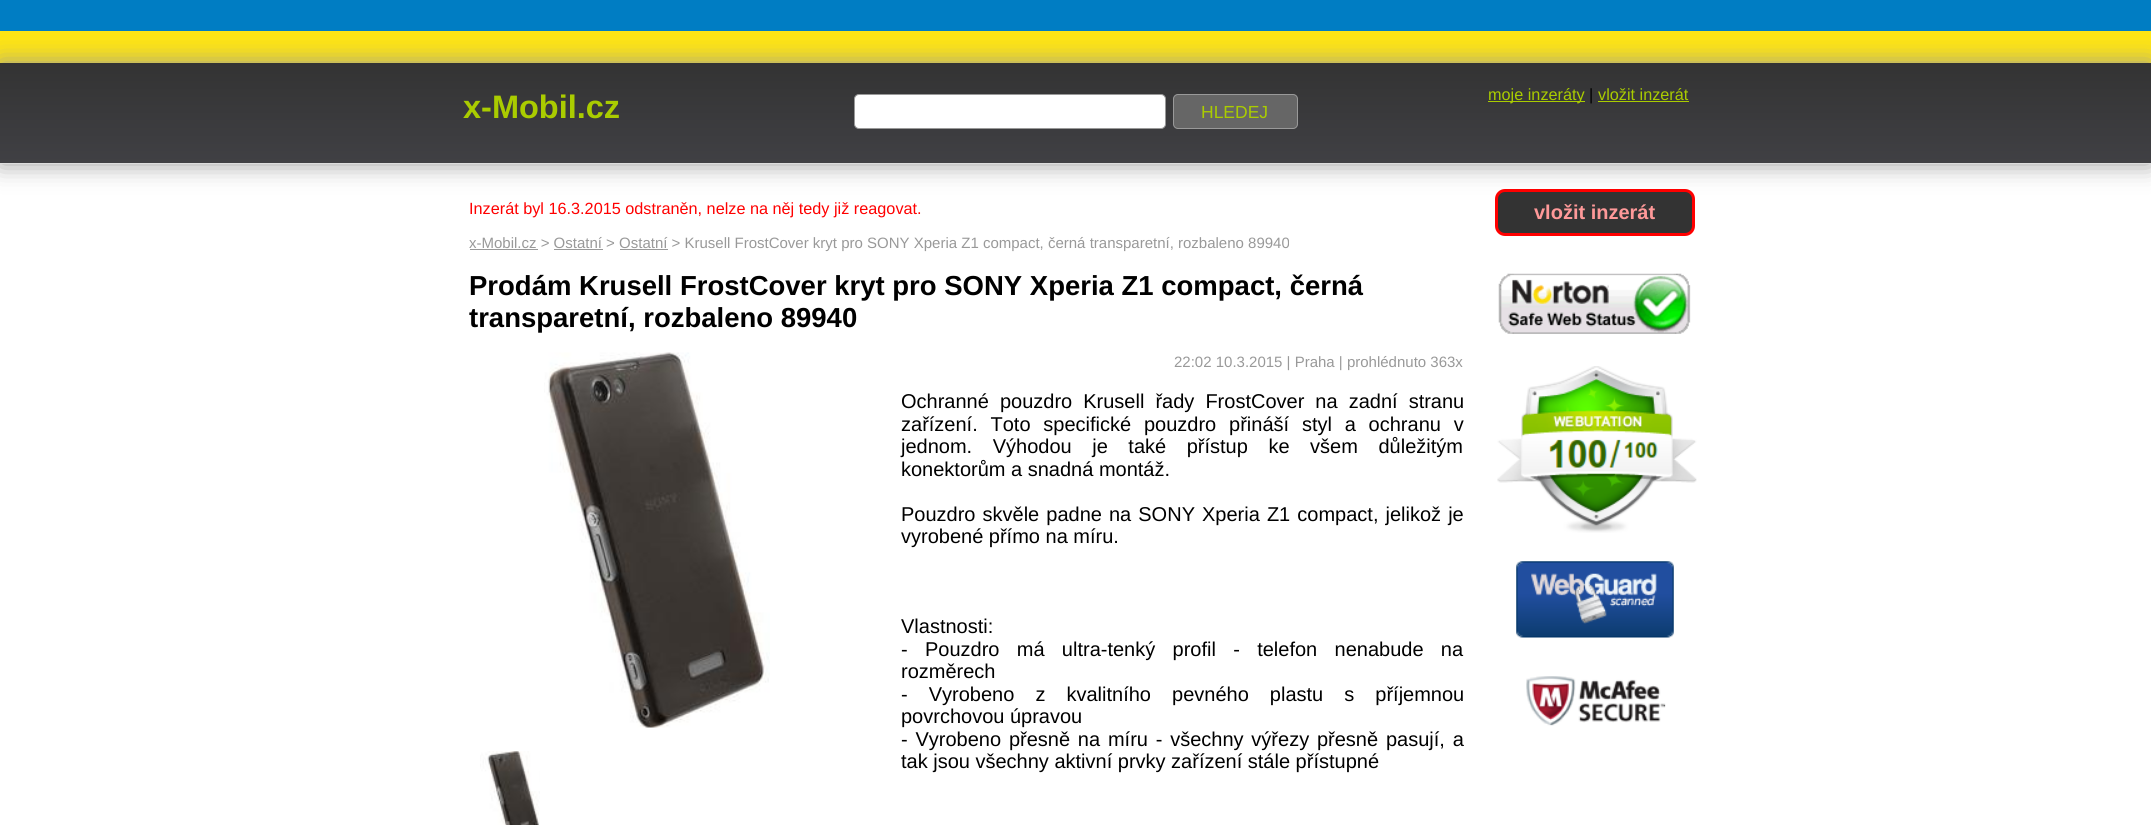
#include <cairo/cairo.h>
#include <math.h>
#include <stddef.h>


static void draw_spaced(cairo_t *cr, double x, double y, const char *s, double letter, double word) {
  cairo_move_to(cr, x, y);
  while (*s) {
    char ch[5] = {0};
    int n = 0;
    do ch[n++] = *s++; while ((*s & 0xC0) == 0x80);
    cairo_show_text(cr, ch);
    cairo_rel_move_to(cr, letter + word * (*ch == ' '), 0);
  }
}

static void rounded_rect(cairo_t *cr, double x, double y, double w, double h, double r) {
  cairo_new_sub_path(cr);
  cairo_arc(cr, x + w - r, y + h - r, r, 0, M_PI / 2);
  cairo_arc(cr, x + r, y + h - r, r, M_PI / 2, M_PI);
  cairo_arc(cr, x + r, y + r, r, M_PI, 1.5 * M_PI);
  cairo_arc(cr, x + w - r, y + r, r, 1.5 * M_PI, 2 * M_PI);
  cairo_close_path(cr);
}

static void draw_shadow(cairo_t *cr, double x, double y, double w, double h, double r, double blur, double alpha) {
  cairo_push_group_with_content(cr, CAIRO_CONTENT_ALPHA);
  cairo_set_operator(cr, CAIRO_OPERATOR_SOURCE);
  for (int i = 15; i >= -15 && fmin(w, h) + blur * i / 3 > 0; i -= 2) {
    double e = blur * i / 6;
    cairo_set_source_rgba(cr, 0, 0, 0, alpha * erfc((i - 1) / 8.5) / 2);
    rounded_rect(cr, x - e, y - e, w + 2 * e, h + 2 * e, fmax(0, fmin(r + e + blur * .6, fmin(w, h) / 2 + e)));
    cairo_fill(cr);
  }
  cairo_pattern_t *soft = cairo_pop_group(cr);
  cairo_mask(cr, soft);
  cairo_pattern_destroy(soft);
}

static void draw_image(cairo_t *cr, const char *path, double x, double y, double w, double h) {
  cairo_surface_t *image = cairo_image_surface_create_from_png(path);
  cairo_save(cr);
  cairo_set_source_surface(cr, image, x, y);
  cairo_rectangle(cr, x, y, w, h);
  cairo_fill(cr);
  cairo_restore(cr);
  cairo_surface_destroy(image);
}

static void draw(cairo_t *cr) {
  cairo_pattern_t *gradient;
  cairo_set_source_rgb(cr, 1, 1, 1);
  cairo_paint(cr);
  cairo_set_source_rgb(cr, 0, 125 / 255.0, 195 / 255.0);
  cairo_rectangle(cr, 0, 0, 2151, 31);
  cairo_fill(cr);
  cairo_set_source_rgb(cr, 1, 229 / 255.0, 18 / 255.0);
  cairo_rectangle(cr, 0, 31, 2151, 32);
  cairo_fill(cr);
  cairo_set_source_rgb(cr, 153 / 255.0, 153 / 255.0, 153 / 255.0);
  draw_shadow(cr, 0, 63, 2151, 101, 0, 12.5, 1);
  gradient = cairo_pattern_create_linear(1076, 62, 1076, 163);
  cairo_pattern_add_color_stop_rgba(gradient, 0, 51 / 255.0, 51 / 255.0, 51 / 255.0, 1);
  cairo_pattern_add_color_stop_rgba(gradient, 1, 64 / 255.0, 64 / 255.0, 68 / 255.0, 1);
  cairo_set_source(cr, gradient);
  cairo_pattern_destroy(gradient);
  cairo_rectangle(cr, 0, 63, 2151, 100);
  cairo_fill(cr);
  cairo_set_source_rgb(cr, 221 / 255.0, 221 / 255.0, 221 / 255.0);
  cairo_rectangle(cr, 0, 163, 2151, 1);
  cairo_fill(cr);
  cairo_set_source_rgb(cr, 1, 1, 1);
  rounded_rect(cr, 854.5, 94.5, 311, 34, 4.5);
  cairo_fill_preserve(cr);
  cairo_set_source_rgb(cr, 153 / 255.0, 153 / 255.0, 153 / 255.0);
  cairo_set_line_width(cr, 1);
  cairo_stroke(cr);
  cairo_set_source_rgb(cr, 102 / 255.0, 102 / 255.0, 102 / 255.0);
  rounded_rect(cr, 1173.5, 94.5, 124, 34, 4.5);
  cairo_fill_preserve(cr);
  cairo_set_source_rgb(cr, 153 / 255.0, 153 / 255.0, 153 / 255.0);
  cairo_stroke(cr);
  cairo_set_source_rgb(cr, 170 / 255.0, 204 / 255.0, 0);
  cairo_rectangle(cr, 1488, 101, 97, 1);
  cairo_fill(cr);
  cairo_rectangle(cr, 1598, 101, 91, 1);
  cairo_fill(cr);
  cairo_set_source_rgb(cr, 153 / 255.0, 153 / 255.0, 153 / 255.0);
  cairo_rectangle(cr, 470, 249, 68, 1);
  cairo_fill(cr);
  cairo_rectangle(cr, 554, 249, 49, 1);
  cairo_fill(cr);
  cairo_rectangle(cr, 620, 249, 48, 1);
  cairo_fill(cr);
  draw_image(cr, "images/1.png", 544, 352, 226, 376);
  draw_image(cr, "images/2.png", 480, 751, 60, 74);
  cairo_set_source_rgb(cr, 51 / 255.0, 51 / 255.0, 51 / 255.0);
  rounded_rect(cr, 1496.5, 190.5, 197, 44, 8.5);
  cairo_fill_preserve(cr);
  cairo_set_source_rgb(cr, 1, 0, 0);
  cairo_set_line_width(cr, 3);
  cairo_stroke(cr);
  draw_image(cr, "images/3.png", 1498, 273, 193, 61);
  draw_image(cr, "images/4.png", 1497, 366, 200, 167);
  draw_image(cr, "images/5.png", 1516, 561, 158, 77);
  draw_image(cr, "images/6.png", 1526, 676, 140, 50);
  cairo_select_font_face(cr, "Liberation Sans", CAIRO_FONT_SLANT_NORMAL, CAIRO_FONT_WEIGHT_BOLD);
  cairo_set_font_size(cr, 32.5);
  cairo_set_source_rgb(cr, 170 / 255.0, 204 / 255.0, 0);
  cairo_move_to(cr, 463, 118);
  cairo_show_text(cr, "x-Mobil.cz");
  cairo_select_font_face(cr, "Liberation Sans", CAIRO_FONT_SLANT_NORMAL, CAIRO_FONT_WEIGHT_NORMAL);
  cairo_set_font_size(cr, 17.5);
  cairo_move_to(cr, 1201, 118);
  cairo_show_text(cr, "HLEDEJ");
  cairo_set_font_size(cr, 16.25);
  cairo_move_to(cr, 1488, 100);
  cairo_show_text(cr, "moje inzeráty");
  cairo_set_source_rgb(cr, 0, 0, 0);
  cairo_move_to(cr, 1589, 100);
  cairo_show_text(cr, "|");
  cairo_set_source_rgb(cr, 170 / 255.0, 204 / 255.0, 0);
  cairo_move_to(cr, 1598, 100);
  cairo_show_text(cr, "vložit inzerát");
  cairo_set_source_rgb(cr, 1, 0, 0);
  cairo_move_to(cr, 469, 214);
  cairo_show_text(cr, "Inzerát byl 16.3.2015 odstraněn, nelze na něj tedy již reagovat.");
  cairo_set_font_size(cr, 15);
  cairo_set_source_rgb(cr, 153 / 255.0, 153 / 255.0, 153 / 255.0);
  cairo_move_to(cr, 469, 248);
  cairo_show_text(cr, "x-Mobil.cz > Ostatní > Ostatní > Krusell FrostCover kryt pro SONY Xperia Z1 compact, černá transparetní, rozbaleno 89940");
  cairo_select_font_face(cr, "Liberation Sans", CAIRO_FONT_SLANT_NORMAL, CAIRO_FONT_WEIGHT_BOLD);
  cairo_set_font_size(cr, 27.5);
  cairo_set_source_rgb(cr, 0, 0, 0);
  cairo_move_to(cr, 469, 295);
  cairo_show_text(cr, "Prodám Krusell FrostCover kryt pro SONY Xperia Z1 compact, černá");
  cairo_move_to(cr, 469, 327);
  cairo_show_text(cr, "transparetní, rozbaleno 89940");
  cairo_select_font_face(cr, "Liberation Sans", CAIRO_FONT_SLANT_NORMAL, CAIRO_FONT_WEIGHT_NORMAL);
  cairo_set_font_size(cr, 15);
  cairo_set_source_rgb(cr, 153 / 255.0, 153 / 255.0, 153 / 255.0);
  cairo_move_to(cr, 1174, 367);
  cairo_show_text(cr, "22:02 10.3.2015 | Praha | prohlédnuto 363x");
  cairo_set_font_size(cr, 20);
  cairo_set_source_rgb(cr, 0, 0, 0);
  draw_spaced(cr, 901, 408, "Ochranné pouzdro Krusell řady FrostCover na zadní stranu", 0, 5.5);
  draw_spaced(cr, 901, 431, "zařízení. Toto specifické pouzdro přináší styl a ochranu v", 0, 7.25);
  draw_spaced(cr, 901, 453, "jednom. Výhodou je také přístup ke všem důležitým", 0, 15);
  cairo_move_to(cr, 901, 476);
  cairo_show_text(cr, "konektorům a snadná montáž.");
  draw_spaced(cr, 901, 521, "Pouzdro skvěle padne na SONY Xperia Z1 compact, jelikož je", 0, 1.5);
  cairo_move_to(cr, 901, 543);
  cairo_show_text(cr, "vyrobené přímo na míru.");
  cairo_move_to(cr, 901, 633);
  cairo_show_text(cr, "Vlastnosti:");
  draw_spaced(cr, 901, 656, "- Pouzdro má ultra-tenký profil - telefon nenabude na", 0, 11.75);
  cairo_move_to(cr, 901, 678);
  cairo_show_text(cr, "rozměrech");
  draw_spaced(cr, 901, 701, "- Vyrobeno z kvalitního pevného plastu s příjemnou", 0, 15.5);
  cairo_move_to(cr, 901, 723);
  cairo_show_text(cr, "povrchovou úpravou");
  draw_spaced(cr, 901, 746, "- Vyrobeno přesně na míru - všechny výřezy přesně pasují, a", 0, 2.25);
  cairo_move_to(cr, 901, 768);
  cairo_show_text(cr, "tak jsou všechny aktivní prvky zařízení stále přístupné");
  cairo_select_font_face(cr, "Liberation Sans", CAIRO_FONT_SLANT_NORMAL, CAIRO_FONT_WEIGHT_BOLD);
  cairo_set_source_rgb(cr, 1, 153 / 255.0, 153 / 255.0);
  cairo_move_to(cr, 1534, 219);
  cairo_show_text(cr, "vložit inzerát");
}

int main(void) {
  cairo_surface_t *surface = cairo_image_surface_create(CAIRO_FORMAT_RGB24, 2151, 825);
  cairo_t *cr = cairo_create(surface);
  cairo_font_options_t *options = cairo_font_options_create();
  cairo_font_options_set_hint_metrics(options, CAIRO_HINT_METRICS_OFF);
  cairo_font_options_set_hint_style(options, CAIRO_HINT_STYLE_NONE);
  cairo_set_font_options(cr, options);
  cairo_set_miter_limit(cr, 4);
  draw(cr);
  cairo_surface_write_to_png(surface, "out.png");
  cairo_font_options_destroy(options);
  cairo_destroy(cr);
  cairo_surface_destroy(surface);
  return 0;
}
